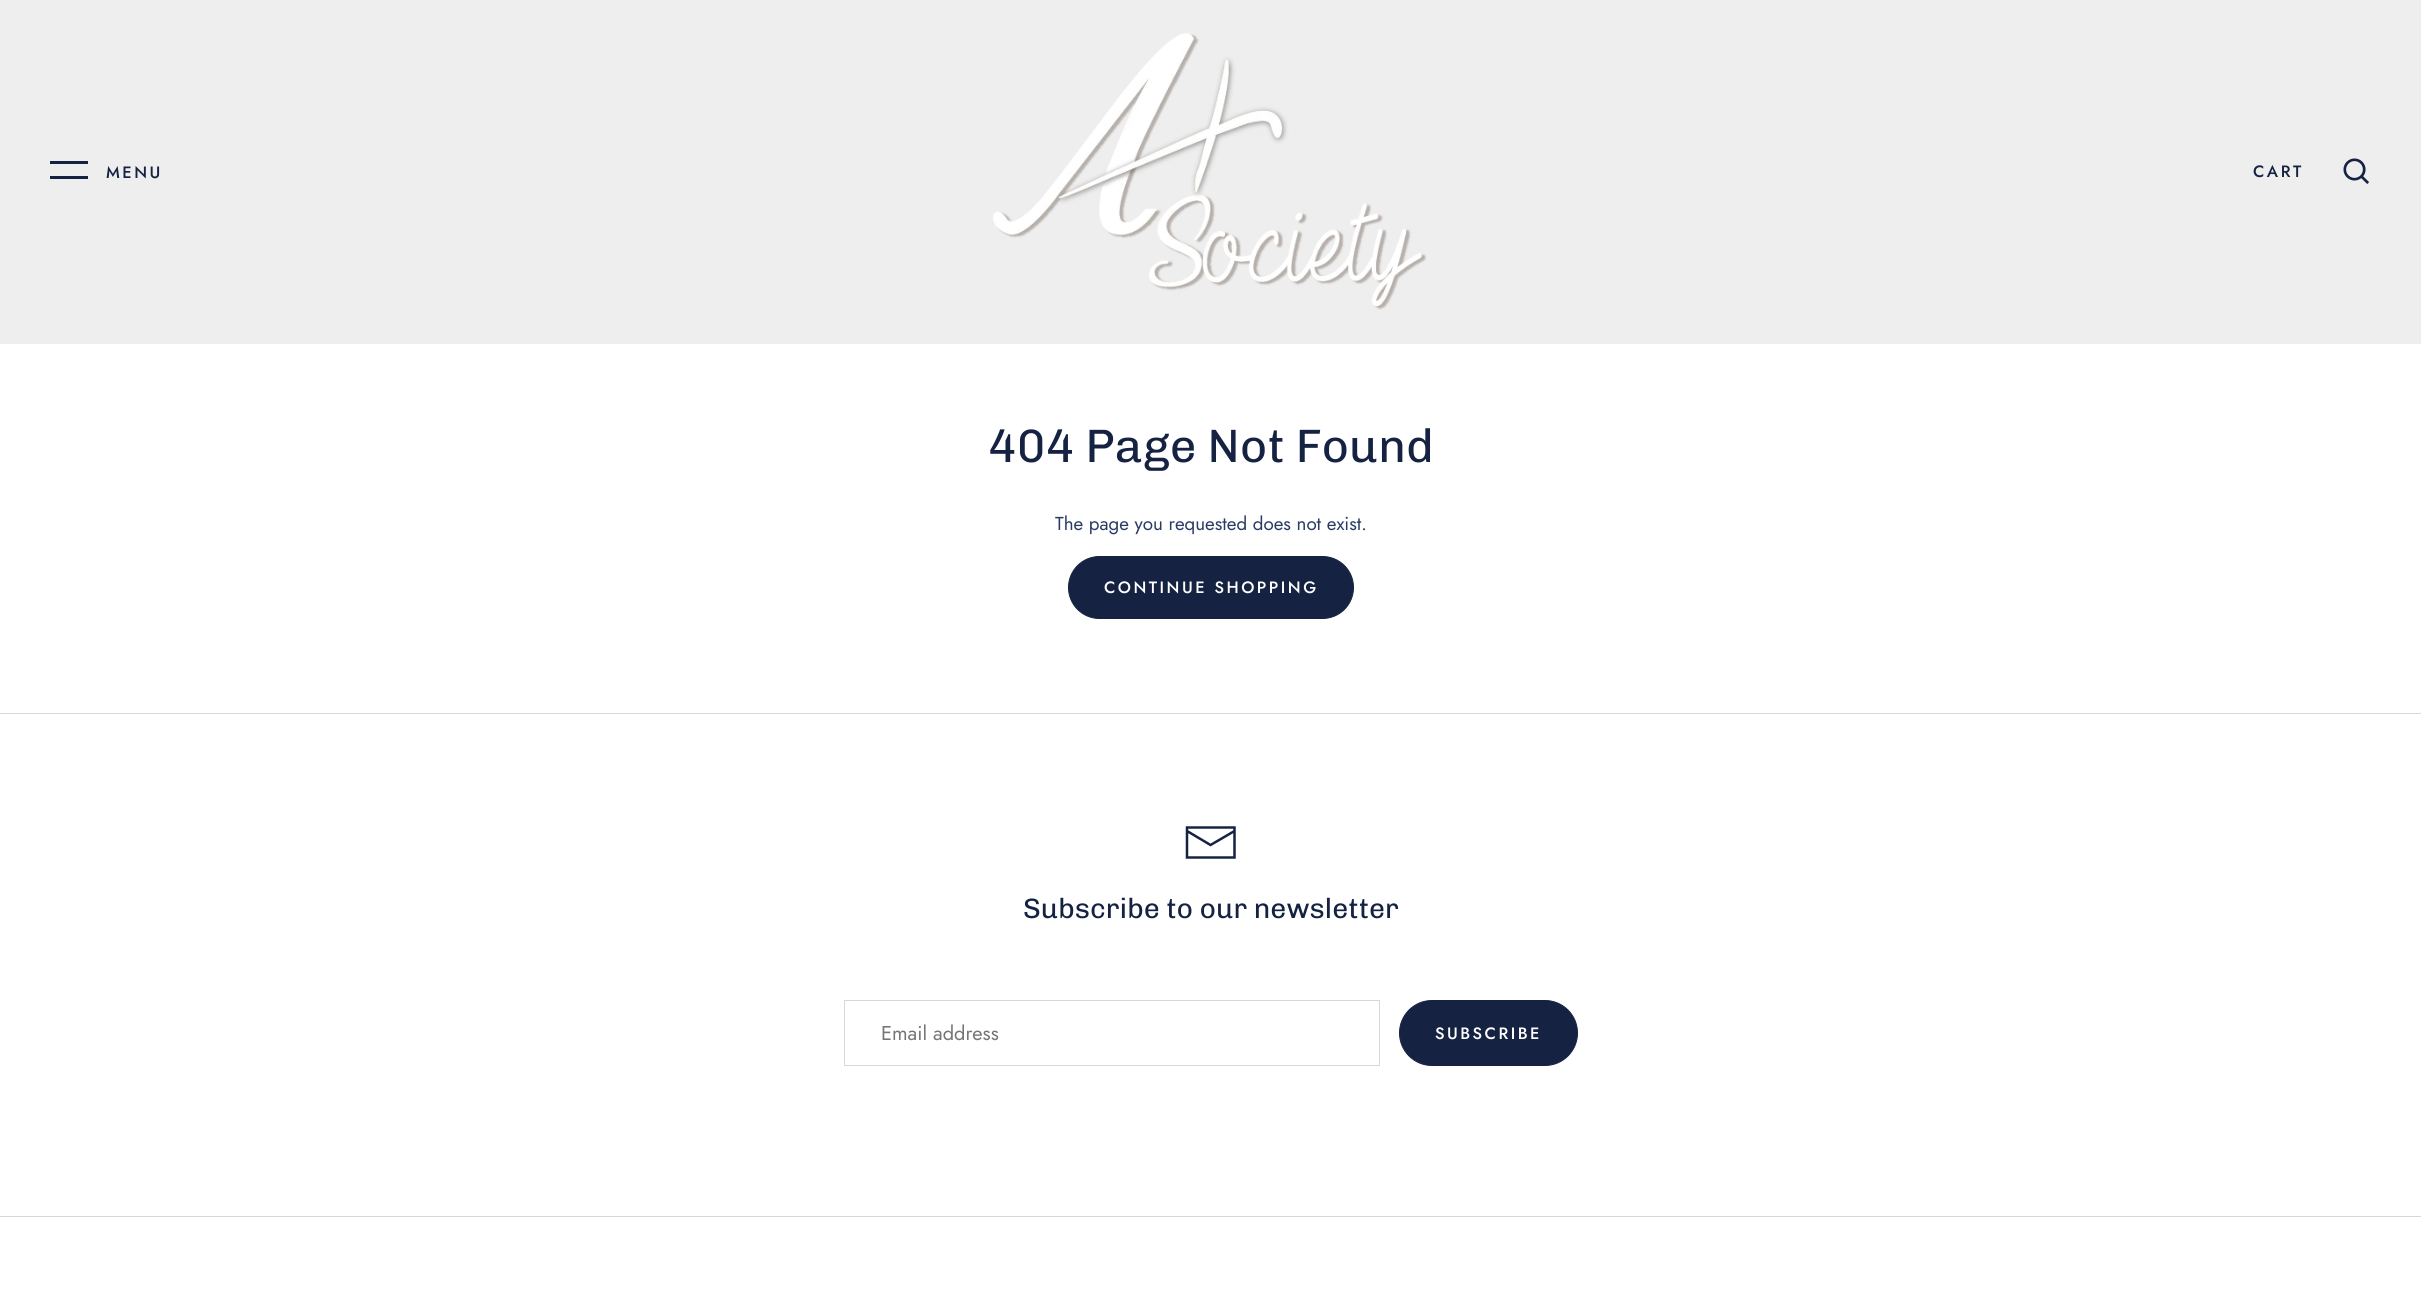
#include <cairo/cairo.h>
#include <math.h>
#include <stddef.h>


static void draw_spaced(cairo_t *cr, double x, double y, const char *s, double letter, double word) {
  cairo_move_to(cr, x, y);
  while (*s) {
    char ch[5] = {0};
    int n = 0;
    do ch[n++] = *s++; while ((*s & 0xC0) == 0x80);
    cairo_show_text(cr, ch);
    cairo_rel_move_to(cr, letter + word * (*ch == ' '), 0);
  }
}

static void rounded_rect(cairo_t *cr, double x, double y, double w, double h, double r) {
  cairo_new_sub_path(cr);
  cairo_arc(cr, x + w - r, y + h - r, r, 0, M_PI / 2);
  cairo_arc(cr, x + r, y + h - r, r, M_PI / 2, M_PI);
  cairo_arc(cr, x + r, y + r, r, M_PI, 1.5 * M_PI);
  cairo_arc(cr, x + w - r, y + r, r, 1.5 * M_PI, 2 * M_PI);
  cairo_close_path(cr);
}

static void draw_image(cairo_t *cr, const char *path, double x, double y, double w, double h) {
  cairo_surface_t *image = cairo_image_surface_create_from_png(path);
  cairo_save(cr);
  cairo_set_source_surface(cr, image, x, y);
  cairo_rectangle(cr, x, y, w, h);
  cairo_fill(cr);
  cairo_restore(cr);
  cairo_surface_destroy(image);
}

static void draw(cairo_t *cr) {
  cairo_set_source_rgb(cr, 1, 1, 1);
  cairo_paint(cr);
  cairo_set_source_rgb(cr, 238 / 255.0, 238 / 255.0, 238 / 255.0);
  cairo_rectangle(cr, 0, 0, 2421, 344);
  cairo_fill(cr);
  cairo_set_source_rgb(cr, 21 / 255.0, 34 / 255.0, 66 / 255.0);
  cairo_rectangle(cr, 50, 161, 38, 3);
  cairo_fill(cr);
  cairo_rectangle(cr, 50, 176, 38, 3);
  cairo_fill(cr);
  draw_image(cr, "images/1.png", 992, 33, 435, 277);
  draw_image(cr, "images/2.png", 2343, 158, 26, 26);
  rounded_rect(cr, 1068.5, 556.5, 285, 62, 31);
  cairo_fill_preserve(cr);
  cairo_set_line_width(cr, 1);
  cairo_stroke(cr);
  cairo_set_source_rgb(cr, 212 / 255.0, 216 / 255.0, 224 / 255.0);
  cairo_rectangle(cr, 0, 713, 2421, 1);
  cairo_fill(cr);
  cairo_rectangle(cr, 0, 1216, 2421, 1);
  cairo_fill(cr);
  cairo_new_path(cr);
  cairo_move_to(cr, 1187, 827.5);
  cairo_line_to(cr, 1187, 857.5);
  cairo_line_to(cr, 1234.5, 857.5);
  cairo_line_to(cr, 1234.5, 827.5);
  cairo_close_path(cr);
  cairo_move_to(cr, 1187, 831);
  cairo_line_to(cr, 1210.5, 845);
  cairo_line_to(cr, 1234.5, 831);
  cairo_set_source_rgb(cr, 21 / 255.0, 34 / 255.0, 66 / 255.0);
  cairo_set_line_width(cr, 2.5);
  cairo_stroke(cr);
  cairo_rectangle(cr, 844.5, 1000.5, 535, 65);
  cairo_set_source_rgb(cr, 212 / 255.0, 216 / 255.0, 224 / 255.0);
  cairo_set_line_width(cr, 1);
  cairo_stroke(cr);
  cairo_set_source_rgb(cr, 21 / 255.0, 34 / 255.0, 66 / 255.0);
  rounded_rect(cr, 1399.5, 1000.5, 178, 65, 32.5);
  cairo_fill_preserve(cr);
  cairo_stroke(cr);
  cairo_select_font_face(cr, "Jost Medium", CAIRO_FONT_SLANT_NORMAL, CAIRO_FONT_WEIGHT_NORMAL);
  cairo_set_font_size(cr, 16.4);
  draw_spaced(cr, 106, 178, "MENU", 2.5, 0);
  draw_spaced(cr, 2253, 177, "CART", 2.5, 0);
  cairo_select_font_face(cr, "Chivo", CAIRO_FONT_SLANT_NORMAL, CAIRO_FONT_WEIGHT_NORMAL);
  cairo_set_font_size(cr, 46.9);
  cairo_move_to(cr, 988, 462);
  cairo_show_text(cr, "404 Page Not Found");
  cairo_select_font_face(cr, "Jost", CAIRO_FONT_SLANT_NORMAL, CAIRO_FONT_WEIGHT_NORMAL);
  cairo_set_font_size(cr, 18.75);
  cairo_set_source_rgb(cr, 41 / 255.0, 59 / 255.0, 101 / 255.0);
  cairo_move_to(cr, 1055, 530);
  cairo_show_text(cr, "The page you requested does not exist.");
  cairo_select_font_face(cr, "Jost Medium", CAIRO_FONT_SLANT_NORMAL, CAIRO_FONT_WEIGHT_NORMAL);
  cairo_set_font_size(cr, 16.4);
  cairo_set_source_rgb(cr, 1, 1, 1);
  draw_spaced(cr, 1104, 593, "CONTINUE SHOPPING", 2.5, 0);
  cairo_select_font_face(cr, "Chivo", CAIRO_FONT_SLANT_NORMAL, CAIRO_FONT_WEIGHT_NORMAL);
  cairo_set_font_size(cr, 28.1);
  cairo_set_source_rgb(cr, 21 / 255.0, 34 / 255.0, 66 / 255.0);
  cairo_move_to(cr, 1023, 918);
  cairo_show_text(cr, "Subscribe to our newsletter");
  cairo_select_font_face(cr, "Jost", CAIRO_FONT_SLANT_NORMAL, CAIRO_FONT_WEIGHT_NORMAL);
  cairo_set_font_size(cr, 20);
  cairo_set_source_rgb(cr, 117 / 255.0, 117 / 255.0, 117 / 255.0);
  cairo_move_to(cr, 881, 1040);
  cairo_show_text(cr, "Email address");
  cairo_select_font_face(cr, "Jost Medium", CAIRO_FONT_SLANT_NORMAL, CAIRO_FONT_WEIGHT_NORMAL);
  cairo_set_font_size(cr, 16.4);
  cairo_set_source_rgb(cr, 1, 1, 1);
  draw_spaced(cr, 1435, 1039, "SUBSCRIBE", 2.5, 0);
}

int main(void) {
  cairo_surface_t *surface = cairo_image_surface_create(CAIRO_FORMAT_RGB24, 2421, 1309);
  cairo_t *cr = cairo_create(surface);
  cairo_font_options_t *options = cairo_font_options_create();
  cairo_font_options_set_hint_metrics(options, CAIRO_HINT_METRICS_OFF);
  cairo_font_options_set_hint_style(options, CAIRO_HINT_STYLE_NONE);
  cairo_set_font_options(cr, options);
  cairo_set_miter_limit(cr, 4);
  draw(cr);
  cairo_surface_write_to_png(surface, "out.png");
  cairo_font_options_destroy(options);
  cairo_destroy(cr);
  cairo_surface_destroy(surface);
  return 0;
}
